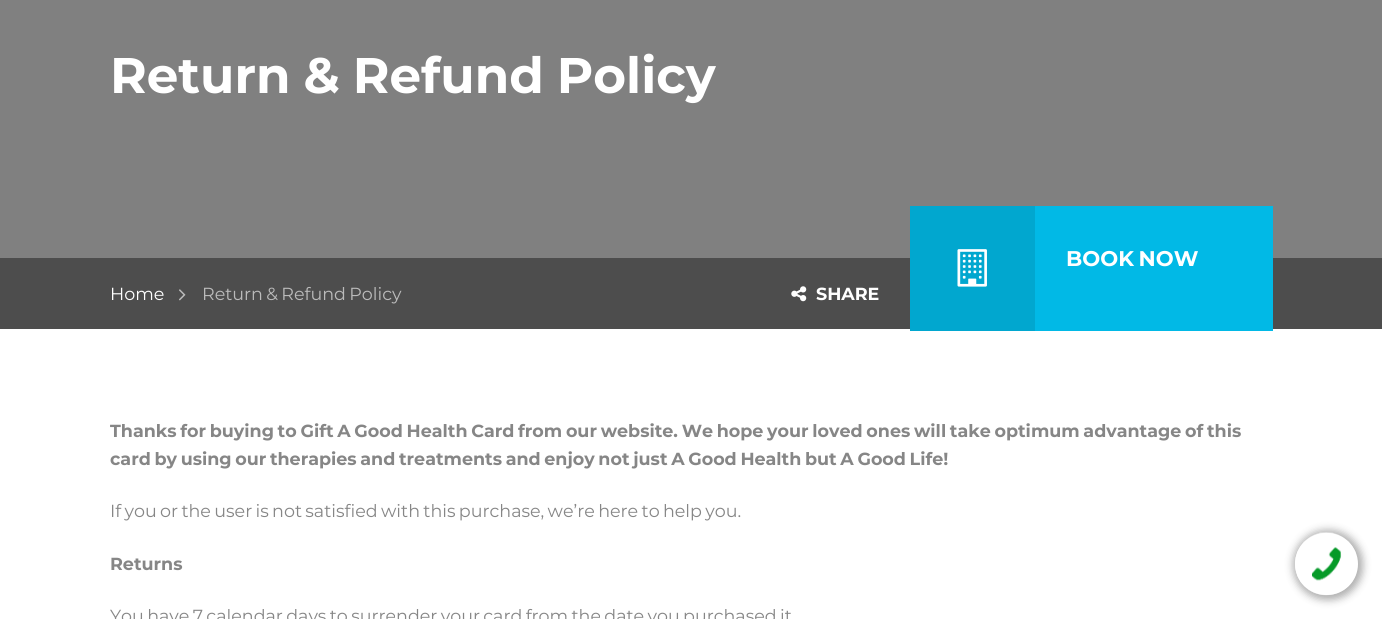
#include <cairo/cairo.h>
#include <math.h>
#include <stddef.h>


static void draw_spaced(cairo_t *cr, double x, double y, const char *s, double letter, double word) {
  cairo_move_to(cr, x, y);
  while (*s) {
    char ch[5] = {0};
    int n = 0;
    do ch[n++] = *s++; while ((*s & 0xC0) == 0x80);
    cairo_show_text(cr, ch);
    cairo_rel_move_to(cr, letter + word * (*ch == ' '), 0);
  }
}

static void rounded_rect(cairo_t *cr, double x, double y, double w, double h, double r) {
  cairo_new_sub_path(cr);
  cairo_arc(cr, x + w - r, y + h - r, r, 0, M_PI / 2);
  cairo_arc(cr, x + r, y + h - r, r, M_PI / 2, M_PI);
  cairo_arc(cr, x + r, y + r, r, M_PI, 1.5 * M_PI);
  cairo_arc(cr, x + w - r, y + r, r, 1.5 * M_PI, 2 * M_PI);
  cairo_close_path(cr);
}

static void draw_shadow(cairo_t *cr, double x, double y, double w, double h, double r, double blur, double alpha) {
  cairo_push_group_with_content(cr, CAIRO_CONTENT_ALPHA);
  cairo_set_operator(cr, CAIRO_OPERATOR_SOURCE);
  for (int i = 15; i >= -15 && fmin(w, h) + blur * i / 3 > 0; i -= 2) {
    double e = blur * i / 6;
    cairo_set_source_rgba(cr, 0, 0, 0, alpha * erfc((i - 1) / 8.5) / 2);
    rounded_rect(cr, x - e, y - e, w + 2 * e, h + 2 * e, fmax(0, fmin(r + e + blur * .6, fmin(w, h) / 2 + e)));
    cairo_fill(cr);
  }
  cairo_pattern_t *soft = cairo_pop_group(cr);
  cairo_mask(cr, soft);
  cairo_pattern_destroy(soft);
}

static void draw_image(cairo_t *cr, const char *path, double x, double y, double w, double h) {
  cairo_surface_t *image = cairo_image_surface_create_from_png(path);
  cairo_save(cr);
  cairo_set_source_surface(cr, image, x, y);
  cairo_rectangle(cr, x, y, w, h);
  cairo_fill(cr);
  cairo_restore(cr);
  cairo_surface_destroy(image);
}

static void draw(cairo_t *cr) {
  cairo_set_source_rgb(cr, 1, 1, 1);
  cairo_paint(cr);
  cairo_set_source_rgb(cr, 128 / 255.0, 128 / 255.0, 128 / 255.0);
  cairo_rectangle(cr, 0, 0, 1382, 258);
  cairo_fill(cr);
  cairo_set_source_rgb(cr, 77 / 255.0, 77 / 255.0, 77 / 255.0);
  cairo_rectangle(cr, 0, 258, 1382, 71);
  cairo_fill(cr);
  cairo_set_source_rgb(cr, 1 / 255.0, 185 / 255.0, 230 / 255.0);
  cairo_rectangle(cr, 1035, 206, 238, 125);
  cairo_fill(cr);
  cairo_set_source_rgb(cr, 1 / 255.0, 167 / 255.0, 207 / 255.0);
  cairo_rectangle(cr, 910, 206, 125, 125);
  cairo_fill(cr);
  draw_image(cr, "images/1.png", 957, 249, 30, 38);
  draw_image(cr, "images/2.png", 179, 289, 7, 12);
  draw_image(cr, "images/3.png", 791, 286, 16, 16);
  cairo_set_source_rgb(cr, 147 / 255.0, 147 / 255.0, 147 / 255.0);
  draw_shadow(cr, 1293, 530, 70, 70, 35, 4, 0.74);
  cairo_set_source_rgb(cr, 1, 1, 1);
  rounded_rect(cr, 1295, 533, 63, 62, 31);
  cairo_fill(cr);
  draw_image(cr, "images/4.png", 1295, 532, 61, 64);
  cairo_select_font_face(cr, "Montserrat", CAIRO_FONT_SLANT_NORMAL, CAIRO_FONT_WEIGHT_BOLD);
  cairo_set_font_size(cr, 50);
  draw_spaced(cr, 110, 93, "Return & Refund Policy", 0, -1.25);
  cairo_set_font_size(cr, 21.25);
  draw_spaced(cr, 1066, 266, "BOOK NOW", 0, -1.25);
  cairo_select_font_face(cr, "Montserrat", CAIRO_FONT_SLANT_NORMAL, CAIRO_FONT_WEIGHT_NORMAL);
  cairo_set_font_size(cr, 17.5);
  cairo_move_to(cr, 110, 300);
  cairo_show_text(cr, "Home");
  cairo_set_source_rgb(cr, 187 / 255.0, 187 / 255.0, 187 / 255.0);
  draw_spaced(cr, 202, 300, "Return & Refund Policy", 0, -1.25);
  cairo_select_font_face(cr, "Montserrat", CAIRO_FONT_SLANT_NORMAL, CAIRO_FONT_WEIGHT_BOLD);
  cairo_set_source_rgb(cr, 1, 1, 1);
  cairo_move_to(cr, 816, 300);
  cairo_show_text(cr, "SHARE");
  cairo_set_source_rgb(cr, 134 / 255.0, 134 / 255.0, 134 / 255.0);
  draw_spaced(cr, 110, 437, "Thanks for buying to Gift A Good Health Card from our website. We hope your loved ones will take optimum advantage of this", 0, -1.25);
  draw_spaced(cr, 110, 465, "card by using our therapies and treatments and enjoy not just A Good Health but A Good Life!", 0, -1.3);
  cairo_select_font_face(cr, "Montserrat", CAIRO_FONT_SLANT_NORMAL, CAIRO_FONT_WEIGHT_NORMAL);
  draw_spaced(cr, 110, 517, "If you or the user is not satisfied with this purchase, we’re here to help you.", 0, -1.25);
  cairo_select_font_face(cr, "Montserrat", CAIRO_FONT_SLANT_NORMAL, CAIRO_FONT_WEIGHT_BOLD);
  cairo_move_to(cr, 110, 570);
  cairo_show_text(cr, "Returns");
  cairo_select_font_face(cr, "Montserrat", CAIRO_FONT_SLANT_NORMAL, CAIRO_FONT_WEIGHT_NORMAL);
  draw_spaced(cr, 110, 622, "You have 7 calendar days to surrender your card from the date you purchased it", 0, -1.25);
}

int main(void) {
  cairo_surface_t *surface = cairo_image_surface_create(CAIRO_FORMAT_RGB24, 1382, 619);
  cairo_t *cr = cairo_create(surface);
  cairo_font_options_t *options = cairo_font_options_create();
  cairo_font_options_set_hint_metrics(options, CAIRO_HINT_METRICS_OFF);
  cairo_font_options_set_hint_style(options, CAIRO_HINT_STYLE_NONE);
  cairo_set_font_options(cr, options);
  cairo_set_miter_limit(cr, 4);
  draw(cr);
  cairo_surface_write_to_png(surface, "out.png");
  cairo_font_options_destroy(options);
  cairo_destroy(cr);
  cairo_surface_destroy(surface);
  return 0;
}
